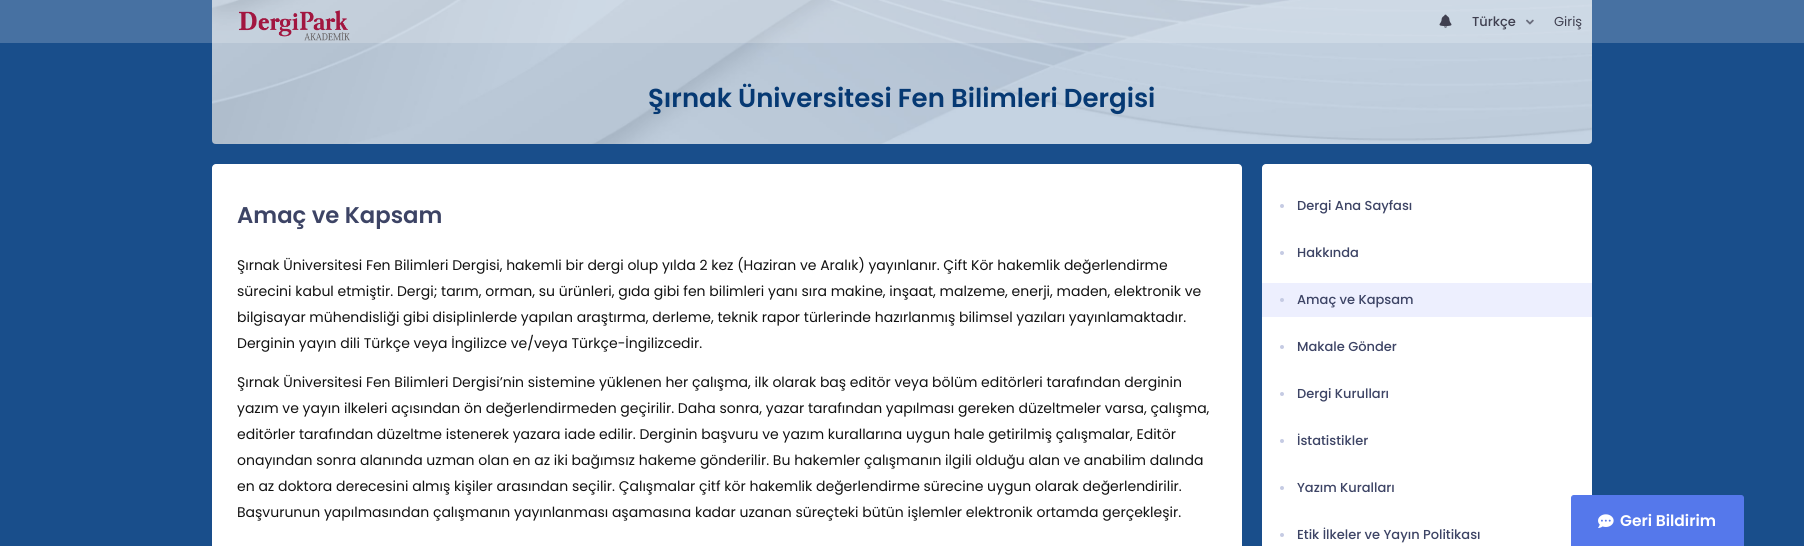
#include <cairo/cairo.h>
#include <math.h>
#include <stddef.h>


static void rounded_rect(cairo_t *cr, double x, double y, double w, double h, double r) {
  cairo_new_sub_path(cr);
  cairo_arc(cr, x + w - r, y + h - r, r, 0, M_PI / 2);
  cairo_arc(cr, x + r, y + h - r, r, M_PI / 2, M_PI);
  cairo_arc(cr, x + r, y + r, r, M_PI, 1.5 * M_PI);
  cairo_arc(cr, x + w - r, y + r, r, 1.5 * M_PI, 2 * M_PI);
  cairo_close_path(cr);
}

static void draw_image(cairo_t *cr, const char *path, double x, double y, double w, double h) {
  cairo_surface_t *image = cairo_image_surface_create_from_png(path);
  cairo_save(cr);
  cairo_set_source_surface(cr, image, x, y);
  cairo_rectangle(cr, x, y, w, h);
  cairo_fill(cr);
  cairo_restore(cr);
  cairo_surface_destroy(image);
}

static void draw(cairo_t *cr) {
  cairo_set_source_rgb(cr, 25 / 255.0, 78 / 255.0, 139 / 255.0);
  cairo_paint(cr);
  draw_image(cr, "images/4.png", 212, 0, 1380, 144);
  cairo_set_source_rgba(cr, 1, 1, 1, 0.2);
  cairo_rectangle(cr, 0, 0, 1804, 43);
  cairo_fill(cr);
  draw_image(cr, "images/1.png", 238, 10, 112, 31);
  draw_image(cr, "images/2.png", 1439, 14, 13, 14);
  draw_image(cr, "images/3.png", 1526, 19, 8, 6);
  cairo_set_source_rgb(cr, 1, 1, 1);
  rounded_rect(cr, 212, 164, 1030, 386, 4);
  cairo_fill(cr);
  rounded_rect(cr, 1262, 164, 330, 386, 4);
  cairo_fill(cr);
  cairo_set_source_rgb(cr, 197 / 255.0, 203 / 255.0, 227 / 255.0);
  cairo_arc(cr, 1282, 206, 2, 0, 2 * M_PI);
  cairo_fill(cr);
  cairo_arc(cr, 1282, 253, 2, 0, 2 * M_PI);
  cairo_fill(cr);
  cairo_set_source_rgb(cr, 237 / 255.0, 239 / 255.0, 254 / 255.0);
  cairo_rectangle(cr, 1262, 283, 330, 34);
  cairo_fill(cr);
  cairo_set_source_rgb(cr, 197 / 255.0, 203 / 255.0, 227 / 255.0);
  cairo_arc(cr, 1282, 300, 2, 0, 2 * M_PI);
  cairo_fill(cr);
  cairo_arc(cr, 1282, 347, 2, 0, 2 * M_PI);
  cairo_fill(cr);
  cairo_arc(cr, 1282, 394, 2, 0, 2 * M_PI);
  cairo_fill(cr);
  cairo_arc(cr, 1282, 441, 2, 0, 2 * M_PI);
  cairo_fill(cr);
  cairo_arc(cr, 1282, 488, 2, 0, 2 * M_PI);
  cairo_fill(cr);
  cairo_arc(cr, 1282, 535, 2, 0, 2 * M_PI);
  cairo_fill(cr);
  cairo_set_source_rgb(cr, 85 / 255.0, 120 / 255.0, 235 / 255.0);
  cairo_new_path(cr);
  cairo_move_to(cr, 1574, 495.5);
  cairo_line_to(cr, 1741, 495.5);
  cairo_curve_to(cr, 1742.5, 495.5, 1743.5, 496.5, 1743.5, 498);
  cairo_line_to(cr, 1743.5, 545.5);
  cairo_line_to(cr, 1571.5, 545.5);
  cairo_line_to(cr, 1571.5, 498);
  cairo_curve_to(cr, 1571.5, 496.5, 1572.5, 495.5, 1574, 495.5);
  cairo_close_path(cr);
  cairo_fill_preserve(cr);
  cairo_set_line_width(cr, 1);
  cairo_stroke(cr);
  draw_image(cr, "images/5.png", 1598, 514, 16, 14);
  cairo_select_font_face(cr, "Poppins Medium", CAIRO_FONT_SLANT_NORMAL, CAIRO_FONT_WEIGHT_NORMAL);
  cairo_set_font_size(cr, 13);
  cairo_set_source_rgb(cr, 64 / 255.0, 64 / 255.0, 80 / 255.0);
  cairo_move_to(cr, 1472, 26);
  cairo_show_text(cr, "Türkçe");
  cairo_select_font_face(cr, "Poppins", CAIRO_FONT_SLANT_NORMAL, CAIRO_FONT_WEIGHT_NORMAL);
  cairo_move_to(cr, 1554, 26);
  cairo_show_text(cr, "Giriş");
  cairo_select_font_face(cr, "Poppins SemiBold", CAIRO_FONT_SLANT_NORMAL, CAIRO_FONT_WEIGHT_NORMAL);
  cairo_set_font_size(cr, 26);
  cairo_set_source_rgb(cr, 6 / 255.0, 57 / 255.0, 115 / 255.0);
  cairo_move_to(cr, 648, 107);
  cairo_show_text(cr, "Şırnak Üniversitesi Fen Bilimleri Dergisi");
  cairo_set_font_size(cr, 22.75);
  cairo_set_source_rgb(cr, 61 / 255.0, 68 / 255.0, 101 / 255.0);
  cairo_move_to(cr, 237, 223);
  cairo_show_text(cr, "Amaç ve Kapsam");
  cairo_select_font_face(cr, "Poppins", CAIRO_FONT_SLANT_NORMAL, CAIRO_FONT_WEIGHT_NORMAL);
  cairo_set_font_size(cr, 14);
  cairo_set_source_rgb(cr, 17 / 255.0, 17 / 255.0, 17 / 255.0);
  cairo_move_to(cr, 237, 270);
  cairo_show_text(cr, "Şırnak Üniversitesi Fen Bilimleri Dergisi, hakemli bir dergi olup yılda 2 kez (Haziran ve Aralık) yayınlanır. Çift Kör hakemlik değerlendirme");
  cairo_move_to(cr, 237, 296);
  cairo_show_text(cr, "sürecini kabul etmiştir. Dergi; tarım, orman, su ürünleri, gıda gibi fen bilimleri yanı sıra makine, inşaat, malzeme, enerji, maden, elektronik ve");
  cairo_move_to(cr, 237, 322);
  cairo_show_text(cr, "bilgisayar mühendisliği gibi disiplinlerde yapılan araştırma, derleme, teknik rapor türlerinde hazırlanmış bilimsel yazıları yayınlamaktadır.");
  cairo_move_to(cr, 237, 348);
  cairo_show_text(cr, "Derginin yayın dili Türkçe veya İngilizce ve/veya Türkçe-İngilizcedir.");
  cairo_move_to(cr, 237, 387);
  cairo_show_text(cr, "Şırnak Üniversitesi Fen Bilimleri Dergisi’nin sistemine yüklenen her çalışma, ilk olarak baş editör veya bölüm editörleri tarafından derginin");
  cairo_move_to(cr, 237, 413);
  cairo_show_text(cr, "yazım ve yayın ilkeleri açısından ön değerlendirmeden geçirilir. Daha sonra, yazar tarafından yapılması gereken düzeltmeler varsa, çalışma,");
  cairo_move_to(cr, 237, 439);
  cairo_show_text(cr, "editörler tarafından düzeltme istenerek yazara iade edilir. Derginin başvuru ve yazım kurallarına uygun hale getirilmiş çalışmalar, Editör");
  cairo_move_to(cr, 237, 465);
  cairo_show_text(cr, "onayından sonra alanında uzman olan en az iki bağımsız hakeme gönderilir. Bu hakemler çalışmanın ilgili olduğu alan ve anabilim dalında");
  cairo_move_to(cr, 237, 491);
  cairo_show_text(cr, "en az doktora derecesini almış kişiler arasından seçilir. Çalışmalar çitf kör hakemlik değerlendirme sürecine uygun olarak değerlendirilir.");
  cairo_move_to(cr, 237, 517);
  cairo_show_text(cr, "Başvurunun yapılmasından çalışmanın yayınlanması aşamasına kadar uzanan süreçteki bütün işlemler elektronik ortamda gerçekleşir.");
  cairo_select_font_face(cr, "Poppins Medium", CAIRO_FONT_SLANT_NORMAL, CAIRO_FONT_WEIGHT_NORMAL);
  cairo_set_font_size(cr, 13);
  cairo_set_source_rgb(cr, 61 / 255.0, 68 / 255.0, 101 / 255.0);
  cairo_move_to(cr, 1297, 210);
  cairo_show_text(cr, "Dergi Ana Sayfası");
  cairo_move_to(cr, 1297, 257);
  cairo_show_text(cr, "Hakkında");
  cairo_move_to(cr, 1297, 304);
  cairo_show_text(cr, "Amaç ve Kapsam");
  cairo_move_to(cr, 1297, 351);
  cairo_show_text(cr, "Makale Gönder");
  cairo_move_to(cr, 1297, 398);
  cairo_show_text(cr, "Dergi Kurulları");
  cairo_move_to(cr, 1297, 445);
  cairo_show_text(cr, "İstatistikler");
  cairo_move_to(cr, 1297, 492);
  cairo_show_text(cr, "Yazım Kuralları");
  cairo_move_to(cr, 1297, 539);
  cairo_show_text(cr, "Etik İlkeler ve Yayın Politikası");
  cairo_select_font_face(cr, "Poppins SemiBold", CAIRO_FONT_SLANT_NORMAL, CAIRO_FONT_WEIGHT_NORMAL);
  cairo_set_font_size(cr, 15.5);
  cairo_set_source_rgb(cr, 1, 1, 1);
  cairo_move_to(cr, 1620, 526);
  cairo_show_text(cr, "Geri Bildirim");
}

int main(void) {
  cairo_surface_t *surface = cairo_image_surface_create(CAIRO_FORMAT_RGB24, 1804, 546);
  cairo_t *cr = cairo_create(surface);
  cairo_font_options_t *options = cairo_font_options_create();
  cairo_font_options_set_hint_metrics(options, CAIRO_HINT_METRICS_OFF);
  cairo_font_options_set_hint_style(options, CAIRO_HINT_STYLE_NONE);
  cairo_set_font_options(cr, options);
  cairo_set_miter_limit(cr, 4);
  draw(cr);
  cairo_surface_write_to_png(surface, "out.png");
  cairo_font_options_destroy(options);
  cairo_destroy(cr);
  cairo_surface_destroy(surface);
  return 0;
}
